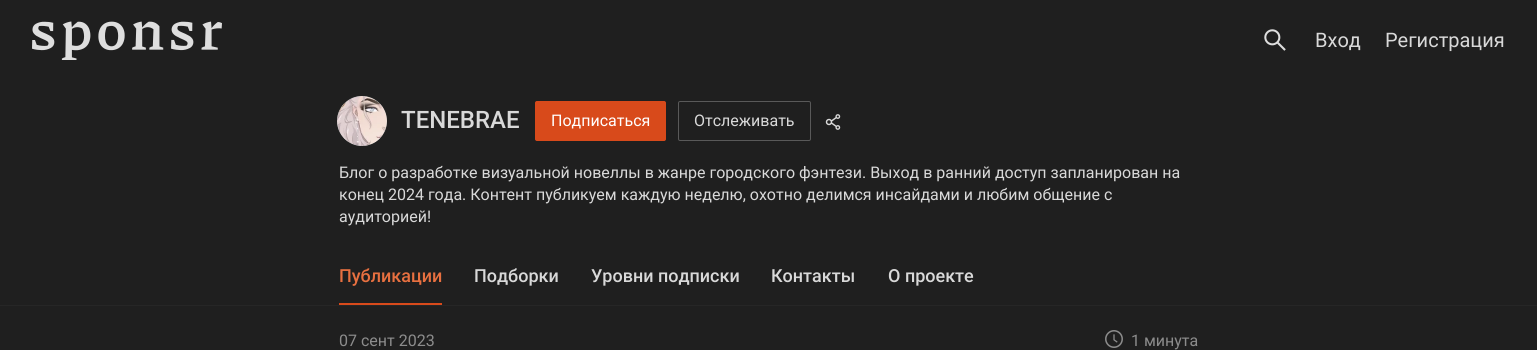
#include <cairo/cairo.h>
#include <math.h>
#include <stddef.h>


static void rounded_rect(cairo_t *cr, double x, double y, double w, double h, double r) {
  cairo_new_sub_path(cr);
  cairo_arc(cr, x + w - r, y + h - r, r, 0, M_PI / 2);
  cairo_arc(cr, x + r, y + h - r, r, M_PI / 2, M_PI);
  cairo_arc(cr, x + r, y + r, r, M_PI, 1.5 * M_PI);
  cairo_arc(cr, x + w - r, y + r, r, 1.5 * M_PI, 2 * M_PI);
  cairo_close_path(cr);
}

static void draw_image(cairo_t *cr, const char *path, double x, double y, double w, double h) {
  cairo_surface_t *image = cairo_image_surface_create_from_png(path);
  cairo_save(cr);
  cairo_set_source_surface(cr, image, x, y);
  cairo_rectangle(cr, x, y, w, h);
  cairo_fill(cr);
  cairo_restore(cr);
  cairo_surface_destroy(image);
}

static void draw(cairo_t *cr) {
  cairo_set_source_rgb(cr, 31 / 255.0, 31 / 255.0, 31 / 255.0);
  cairo_paint(cr);
  draw_image(cr, "images/1.png", 32, 21, 190, 39);
  draw_image(cr, "images/2.png", 1264, 29, 22, 22);
  cairo_set_source_rgb(cr, 191 / 255.0, 191 / 255.0, 191 / 255.0);
  cairo_arc(cr, 362, 121, 25, 0, 2 * M_PI);
  cairo_fill(cr);
  draw_image(cr, "images/3.png", 337, 96, 50, 50);
  cairo_set_source_rgb(cr, 216 / 255.0, 74 / 255.0, 27 / 255.0);
  rounded_rect(cr, 535.5, 101.5, 130, 39, 1.5);
  cairo_fill_preserve(cr);
  cairo_set_line_width(cr, 1);
  cairo_stroke(cr);
  rounded_rect(cr, 678.5, 101.5, 132, 39, 1.5);
  cairo_set_source_rgb(cr, 89 / 255.0, 89 / 255.0, 89 / 255.0);
  cairo_stroke(cr);
  draw_image(cr, "images/4.png", 825, 114, 16, 16);
  cairo_set_source_rgb(cr, 216 / 255.0, 74 / 255.0, 27 / 255.0);
  cairo_rectangle(cr, 339, 303, 103, 2);
  cairo_fill(cr);
  cairo_set_source_rgb(cr, 38 / 255.0, 38 / 255.0, 38 / 255.0);
  cairo_rectangle(cr, 0, 305, 1537, 1);
  cairo_fill(cr);
  draw_image(cr, "images/5.png", 1105, 330, 18, 18);
  cairo_select_font_face(cr, "Roboto", CAIRO_FONT_SLANT_NORMAL, CAIRO_FONT_WEIGHT_NORMAL);
  cairo_set_font_size(cr, 20);
  cairo_set_source_rgb(cr, 217 / 255.0, 217 / 255.0, 217 / 255.0);
  cairo_move_to(cr, 1315, 47);
  cairo_show_text(cr, "Вход");
  cairo_move_to(cr, 1385, 47);
  cairo_show_text(cr, "Регистрация");
  cairo_select_font_face(cr, "Roboto Medium", CAIRO_FONT_SLANT_NORMAL, CAIRO_FONT_WEIGHT_NORMAL);
  cairo_set_font_size(cr, 24);
  cairo_move_to(cr, 401, 128);
  cairo_show_text(cr, "TENEBRAE");
  cairo_select_font_face(cr, "Roboto", CAIRO_FONT_SLANT_NORMAL, CAIRO_FONT_WEIGHT_NORMAL);
  cairo_set_font_size(cr, 16);
  cairo_set_source_rgb(cr, 1, 1, 1);
  cairo_move_to(cr, 551, 126);
  cairo_show_text(cr, "Подписаться");
  cairo_set_source_rgb(cr, 217 / 255.0, 217 / 255.0, 217 / 255.0);
  cairo_move_to(cr, 694, 126);
  cairo_show_text(cr, "Отслеживать");
  cairo_move_to(cr, 339, 178);
  cairo_show_text(cr, "Блог о разработке визуальной новеллы в жанре городского фэнтези. Выход в ранний доступ запланирован на");
  cairo_move_to(cr, 339, 200);
  cairo_show_text(cr, "конец 2024 года. Контент публикуем каждую неделю, охотно делимся инсайдами и любим общение с");
  cairo_move_to(cr, 339, 222);
  cairo_show_text(cr, "аудиторией!");
  cairo_select_font_face(cr, "Roboto Medium", CAIRO_FONT_SLANT_NORMAL, CAIRO_FONT_WEIGHT_NORMAL);
  cairo_set_font_size(cr, 18);
  cairo_set_source_rgb(cr, 232 / 255.0, 112 / 255.0, 64 / 255.0);
  cairo_move_to(cr, 339, 282);
  cairo_show_text(cr, "Публикации");
  cairo_set_source_rgb(cr, 217 / 255.0, 217 / 255.0, 217 / 255.0);
  cairo_move_to(cr, 474, 282);
  cairo_show_text(cr, "Подборки");
  cairo_move_to(cr, 591, 282);
  cairo_show_text(cr, "Уровни подписки");
  cairo_move_to(cr, 771, 282);
  cairo_show_text(cr, "Контакты");
  cairo_move_to(cr, 888, 282);
  cairo_show_text(cr, "О проекте");
  cairo_select_font_face(cr, "Roboto", CAIRO_FONT_SLANT_NORMAL, CAIRO_FONT_WEIGHT_NORMAL);
  cairo_set_font_size(cr, 16);
  cairo_set_source_rgb(cr, 140 / 255.0, 140 / 255.0, 140 / 255.0);
  cairo_move_to(cr, 339, 346);
  cairo_show_text(cr, "07 сент 2023");
  cairo_move_to(cr, 1131, 346);
  cairo_show_text(cr, "1 минута");
}

int main(void) {
  cairo_surface_t *surface = cairo_image_surface_create(CAIRO_FORMAT_RGB24, 1537, 350);
  cairo_t *cr = cairo_create(surface);
  cairo_font_options_t *options = cairo_font_options_create();
  cairo_font_options_set_hint_metrics(options, CAIRO_HINT_METRICS_OFF);
  cairo_font_options_set_hint_style(options, CAIRO_HINT_STYLE_NONE);
  cairo_set_font_options(cr, options);
  cairo_set_miter_limit(cr, 4);
  draw(cr);
  cairo_surface_write_to_png(surface, "out.png");
  cairo_font_options_destroy(options);
  cairo_destroy(cr);
  cairo_surface_destroy(surface);
  return 0;
}
